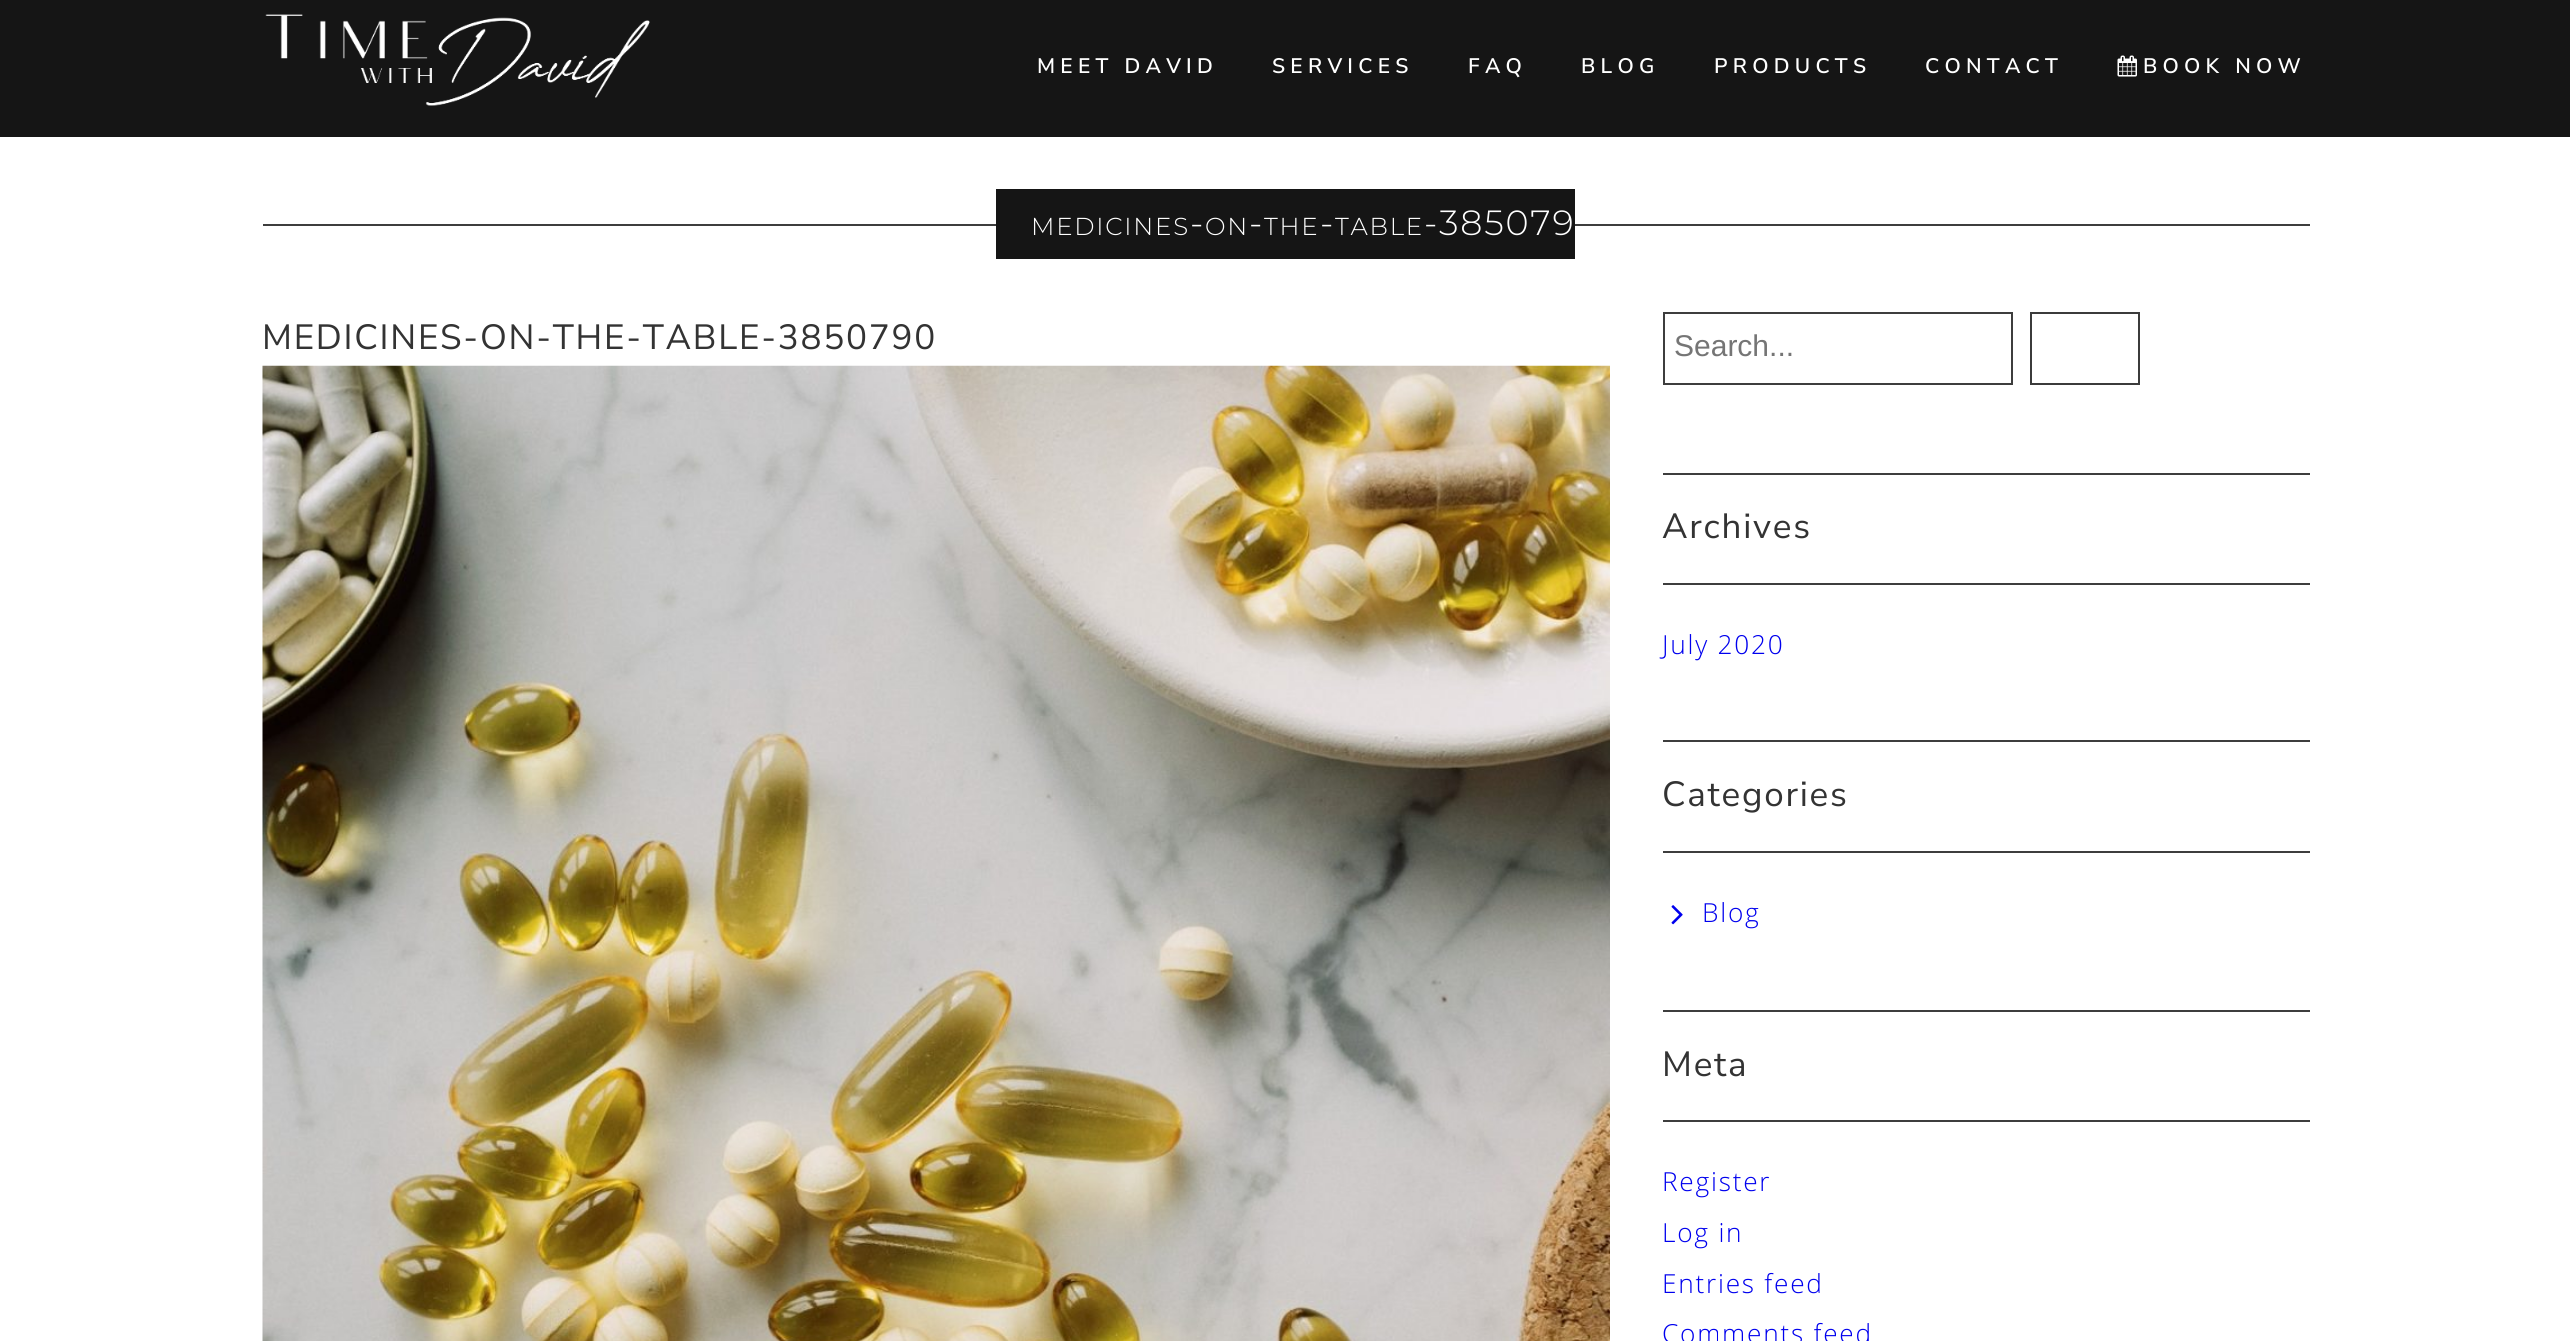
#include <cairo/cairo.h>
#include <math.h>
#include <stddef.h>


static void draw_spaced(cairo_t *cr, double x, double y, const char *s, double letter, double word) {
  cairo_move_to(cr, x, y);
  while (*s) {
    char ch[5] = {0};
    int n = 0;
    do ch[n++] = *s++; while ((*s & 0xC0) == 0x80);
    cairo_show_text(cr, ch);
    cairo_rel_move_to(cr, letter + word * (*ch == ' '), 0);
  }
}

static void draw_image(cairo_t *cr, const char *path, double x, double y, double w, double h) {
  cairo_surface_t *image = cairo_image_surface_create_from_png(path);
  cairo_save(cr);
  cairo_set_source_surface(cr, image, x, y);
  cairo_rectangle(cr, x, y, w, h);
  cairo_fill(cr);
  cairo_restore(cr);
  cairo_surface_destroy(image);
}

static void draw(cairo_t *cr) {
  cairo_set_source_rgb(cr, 1, 1, 1);
  cairo_paint(cr);
  cairo_set_source_rgb(cr, 21 / 255.0, 21 / 255.0, 21 / 255.0);
  cairo_rectangle(cr, 0, 0, 2570, 137);
  cairo_fill(cr);
  draw_image(cr, "images/1.png", 265, 14, 385, 92);
  draw_image(cr, "images/2.png", 2117, 55, 20, 22);
  cairo_set_source_rgb(cr, 61 / 255.0, 61 / 255.0, 61 / 255.0);
  cairo_rectangle(cr, 263, 224, 2047, 2);
  cairo_fill(cr);
  cairo_set_source_rgb(cr, 21 / 255.0, 21 / 255.0, 21 / 255.0);
  cairo_rectangle(cr, 996, 189, 579, 70);
  cairo_fill(cr);
  draw_image(cr, "images/3.png", 262, 365, 1348, 976);
  cairo_rectangle(cr, 1664, 313, 348, 71);
  cairo_set_source_rgb(cr, 61 / 255.0, 61 / 255.0, 61 / 255.0);
  cairo_stroke(cr);
  cairo_rectangle(cr, 2031, 313, 108, 71);
  cairo_set_source_rgb(cr, 59 / 255.0, 59 / 255.0, 59 / 255.0);
  cairo_stroke(cr);
  cairo_set_source_rgb(cr, 61 / 255.0, 61 / 255.0, 61 / 255.0);
  cairo_rectangle(cr, 1663, 473, 647, 2);
  cairo_fill(cr);
  cairo_rectangle(cr, 1663, 583, 647, 2);
  cairo_fill(cr);
  cairo_rectangle(cr, 1663, 740, 647, 2);
  cairo_fill(cr);
  cairo_rectangle(cr, 1663, 851, 647, 2);
  cairo_fill(cr);
  draw_image(cr, "images/4.png", 1671, 905, 12, 20);
  cairo_rectangle(cr, 1663, 1010, 647, 2);
  cairo_fill(cr);
  cairo_rectangle(cr, 1663, 1120, 647, 2);
  cairo_fill(cr);
  cairo_select_font_face(cr, "Nunito Sans SemiBold", CAIRO_FONT_SLANT_NORMAL, CAIRO_FONT_WEIGHT_NORMAL);
  cairo_set_font_size(cr, 21);
  cairo_set_source_rgb(cr, 1, 1, 1);
  draw_spaced(cr, 1037, 73, "MEET DAVID", 5.25, 0);
  draw_spaced(cr, 1272, 73, "SERVICES", 5.25, 0);
  draw_spaced(cr, 1468, 73, "FAQ", 5.25, 0);
  draw_spaced(cr, 1581, 73, "BLOG", 5.25, 0);
  draw_spaced(cr, 1714, 73, "PRODUCTS", 5.25, 0);
  draw_spaced(cr, 1925, 73, "CONTACT", 5.25, 0);
  draw_spaced(cr, 2143, 73, "BOOK NOW", 5.25, 0);
  cairo_select_font_face(cr, "Montserrat Thin", CAIRO_FONT_SLANT_NORMAL, CAIRO_FONT_WEIGHT_NORMAL);
  cairo_set_font_size(cr, 24.5);
  draw_spaced(cr, 1031, 235, "MEDICINES", 1.75, 0);
  cairo_set_font_size(cr, 35);
  draw_spaced(cr, 1190, 235, "-", 1.75, 0);
  cairo_set_font_size(cr, 24.5);
  draw_spaced(cr, 1205, 235, "ON", 1.75, 0);
  cairo_set_font_size(cr, 35);
  draw_spaced(cr, 1249, 235, "-", 1.75, 0);
  cairo_set_font_size(cr, 24.5);
  draw_spaced(cr, 1264, 235, "THE", 1.75, 0);
  cairo_set_font_size(cr, 35);
  draw_spaced(cr, 1320, 235, "-", 1.75, 0);
  cairo_set_font_size(cr, 24.5);
  draw_spaced(cr, 1335, 235, "TABLE", 1.75, 0);
  cairo_set_font_size(cr, 35);
  draw_spaced(cr, 1424, 235, "-385079", 1.75, 0);
  cairo_select_font_face(cr, "Nunito Sans", CAIRO_FONT_SLANT_NORMAL, CAIRO_FONT_WEIGHT_NORMAL);
  cairo_set_source_rgb(cr, 51 / 255.0, 51 / 255.0, 51 / 255.0);
  draw_spaced(cr, 262, 349, "MEDICINES-ON-THE-TABLE-3850790", 1.75, 0);
  cairo_select_font_face(cr, "Liberation Sans", CAIRO_FONT_SLANT_NORMAL, CAIRO_FONT_WEIGHT_NORMAL);
  cairo_set_font_size(cr, 30);
  cairo_set_source_rgb(cr, 117 / 255.0, 117 / 255.0, 117 / 255.0);
  cairo_move_to(cr, 1674, 356);
  cairo_show_text(cr, "Search...");
  cairo_select_font_face(cr, "Nunito Sans", CAIRO_FONT_SLANT_NORMAL, CAIRO_FONT_WEIGHT_NORMAL);
  cairo_set_font_size(cr, 35);
  cairo_set_source_rgb(cr, 51 / 255.0, 51 / 255.0, 51 / 255.0);
  draw_spaced(cr, 1662, 538, "Archives", 1.75, 0);
  cairo_select_font_face(cr, "Open Sans Light", CAIRO_FONT_SLANT_NORMAL, CAIRO_FONT_WEIGHT_NORMAL);
  cairo_set_font_size(cr, 26.25);
  cairo_set_source_rgb(cr, 0, 0, 238 / 255.0);
  draw_spaced(cr, 1662, 654, "July 2020", 1.75, 0);
  cairo_select_font_face(cr, "Nunito Sans", CAIRO_FONT_SLANT_NORMAL, CAIRO_FONT_WEIGHT_NORMAL);
  cairo_set_font_size(cr, 35);
  cairo_set_source_rgb(cr, 51 / 255.0, 51 / 255.0, 51 / 255.0);
  draw_spaced(cr, 1662, 806, "Categories", 1.75, 0);
  cairo_select_font_face(cr, "Open Sans Light", CAIRO_FONT_SLANT_NORMAL, CAIRO_FONT_WEIGHT_NORMAL);
  cairo_set_font_size(cr, 26.25);
  cairo_set_source_rgb(cr, 0, 0, 238 / 255.0);
  draw_spaced(cr, 1702, 922, "Blog", 1.75, 0);
  cairo_select_font_face(cr, "Nunito Sans", CAIRO_FONT_SLANT_NORMAL, CAIRO_FONT_WEIGHT_NORMAL);
  cairo_set_font_size(cr, 35);
  cairo_set_source_rgb(cr, 51 / 255.0, 51 / 255.0, 51 / 255.0);
  draw_spaced(cr, 1662, 1076, "Meta", 1.75, 0);
  cairo_select_font_face(cr, "Open Sans Light", CAIRO_FONT_SLANT_NORMAL, CAIRO_FONT_WEIGHT_NORMAL);
  cairo_set_font_size(cr, 26.25);
  cairo_set_source_rgb(cr, 0, 0, 238 / 255.0);
  draw_spaced(cr, 1662, 1191, "Register", 1.75, 0);
  draw_spaced(cr, 1662, 1242, "Log in", 1.75, 0);
  draw_spaced(cr, 1662, 1293, "Entries feed", 1.75, 0);
  draw_spaced(cr, 1662, 1343, "Comments feed", 1.75, 0);
}

int main(void) {
  cairo_surface_t *surface = cairo_image_surface_create(CAIRO_FORMAT_RGB24, 2570, 1341);
  cairo_t *cr = cairo_create(surface);
  cairo_font_options_t *options = cairo_font_options_create();
  cairo_font_options_set_hint_metrics(options, CAIRO_HINT_METRICS_OFF);
  cairo_font_options_set_hint_style(options, CAIRO_HINT_STYLE_NONE);
  cairo_set_font_options(cr, options);
  cairo_set_miter_limit(cr, 4);
  draw(cr);
  cairo_surface_write_to_png(surface, "out.png");
  cairo_font_options_destroy(options);
  cairo_destroy(cr);
  cairo_surface_destroy(surface);
  return 0;
}
